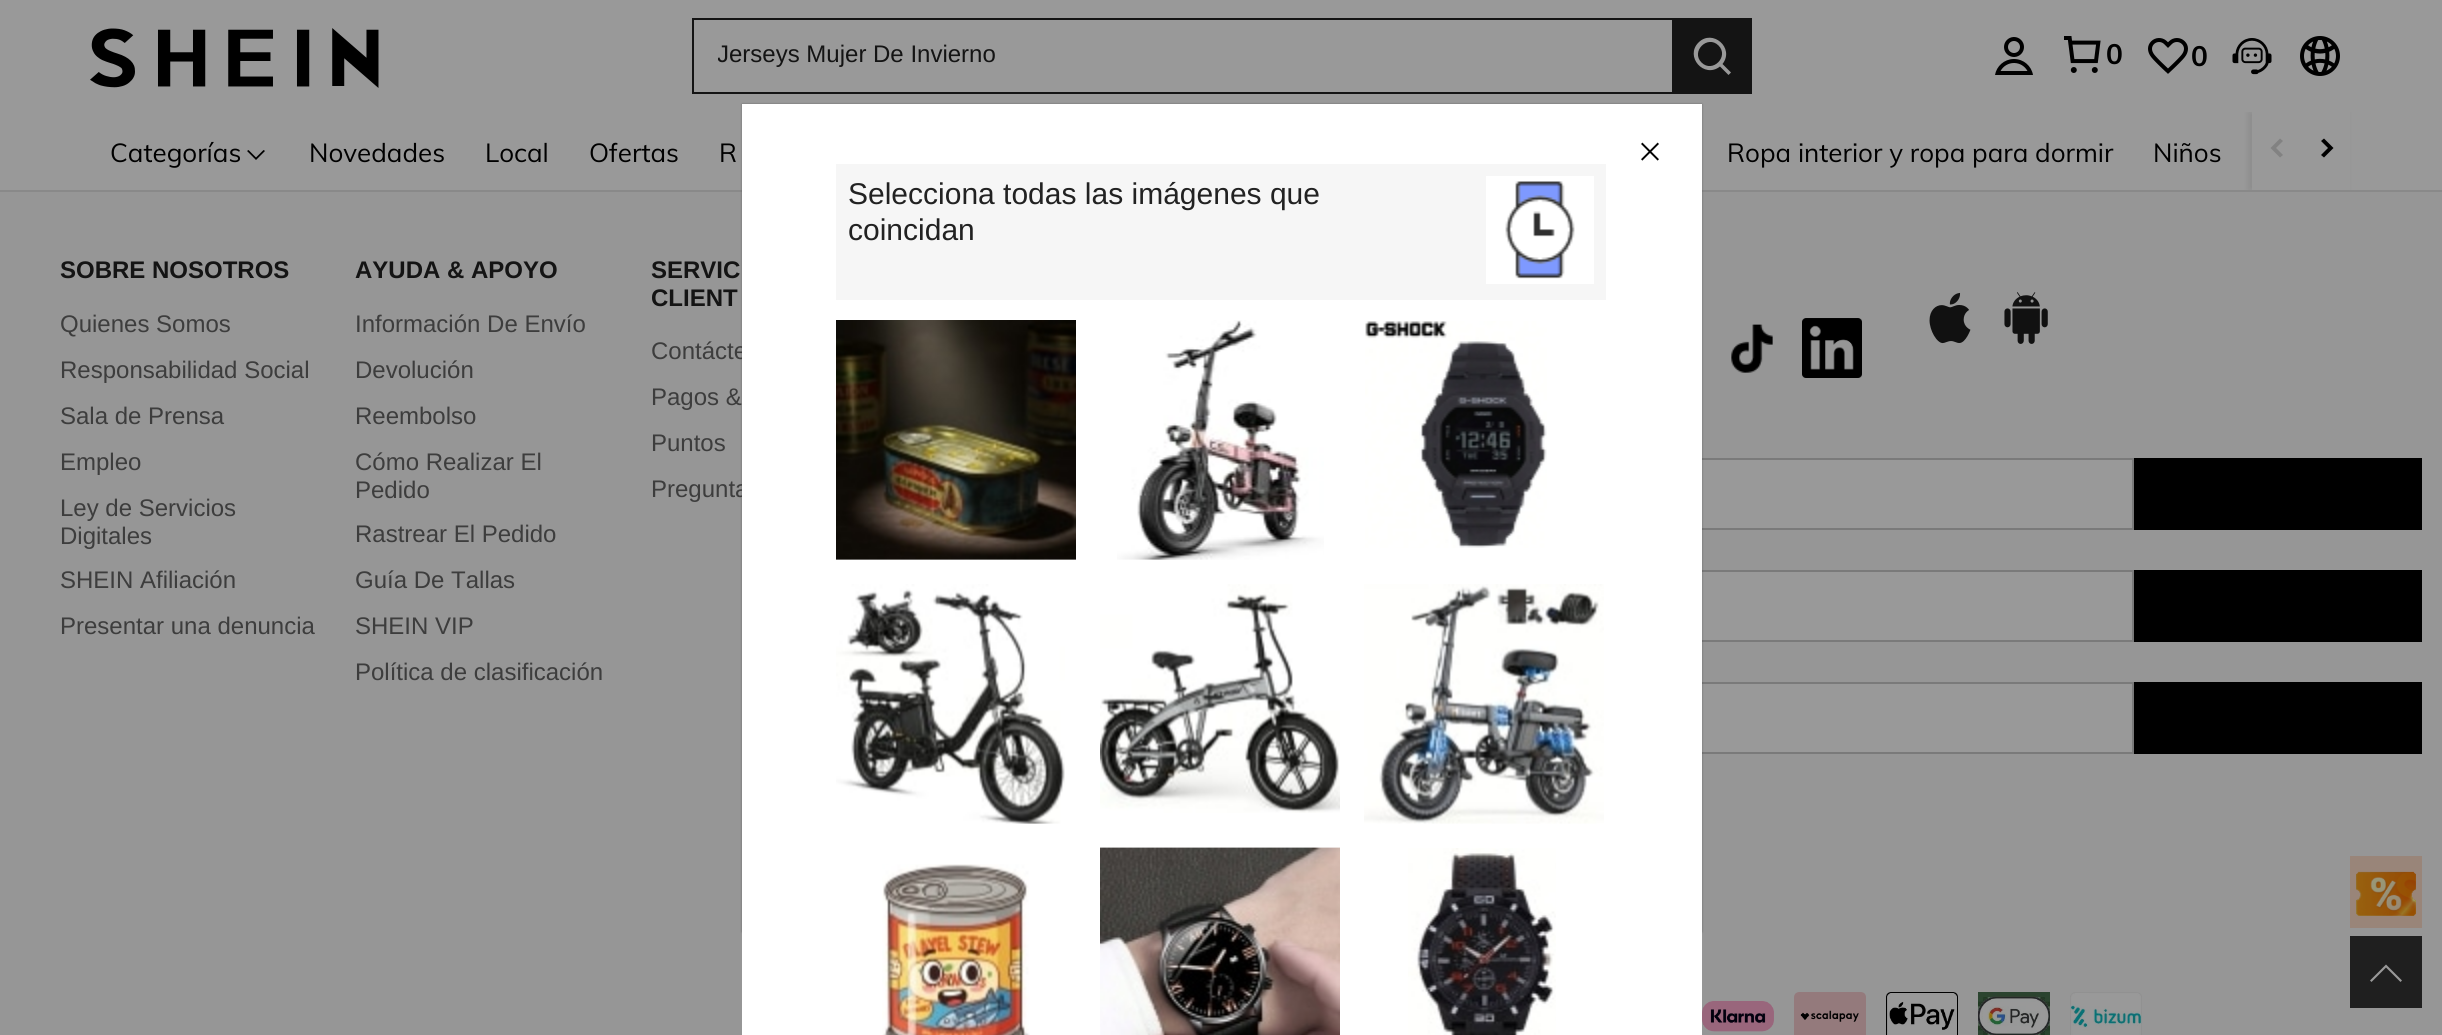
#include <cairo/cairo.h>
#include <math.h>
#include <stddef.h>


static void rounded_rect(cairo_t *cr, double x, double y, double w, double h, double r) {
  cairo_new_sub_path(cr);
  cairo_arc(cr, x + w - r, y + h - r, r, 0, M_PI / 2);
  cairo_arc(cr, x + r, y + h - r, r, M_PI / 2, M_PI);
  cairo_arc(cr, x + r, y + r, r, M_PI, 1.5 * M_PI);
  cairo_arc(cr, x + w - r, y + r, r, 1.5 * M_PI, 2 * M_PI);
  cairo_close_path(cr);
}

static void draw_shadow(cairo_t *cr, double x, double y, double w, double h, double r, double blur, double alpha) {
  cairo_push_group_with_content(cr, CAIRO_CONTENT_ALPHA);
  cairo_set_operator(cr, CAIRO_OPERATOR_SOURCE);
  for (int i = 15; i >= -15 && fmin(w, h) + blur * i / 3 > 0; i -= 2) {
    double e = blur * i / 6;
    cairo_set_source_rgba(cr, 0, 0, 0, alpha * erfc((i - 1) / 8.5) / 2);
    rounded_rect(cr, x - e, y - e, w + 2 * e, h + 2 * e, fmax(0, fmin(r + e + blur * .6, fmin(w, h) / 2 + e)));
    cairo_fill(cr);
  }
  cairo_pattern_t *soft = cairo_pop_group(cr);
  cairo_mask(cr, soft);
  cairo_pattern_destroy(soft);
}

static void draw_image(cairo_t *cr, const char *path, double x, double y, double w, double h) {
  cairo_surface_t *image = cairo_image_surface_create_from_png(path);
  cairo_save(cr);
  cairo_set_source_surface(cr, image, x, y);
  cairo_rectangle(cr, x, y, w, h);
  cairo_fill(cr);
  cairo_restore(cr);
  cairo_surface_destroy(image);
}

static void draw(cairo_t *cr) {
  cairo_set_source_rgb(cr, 150 / 255.0, 150 / 255.0, 150 / 255.0);
  cairo_paint(cr);
  cairo_set_source_rgb(cr, 153 / 255.0, 153 / 255.0, 153 / 255.0);
  cairo_rectangle(cr, 0, 112, 2442, 78);
  cairo_fill(cr);
  cairo_set_source_rgb(cr, 137 / 255.0, 137 / 255.0, 137 / 255.0);
  cairo_rectangle(cr, 0, 190, 2442, 2);
  cairo_fill(cr);
  cairo_save(cr);
  cairo_rectangle(cr, 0, 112, 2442, 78);
  cairo_clip(cr);
  cairo_set_source_rgb(cr, 0, 0, 0);
  draw_shadow(cr, 2248, 112, 100, 78, 0, 3, 0.08);
  cairo_restore(cr);
  cairo_set_source_rgb(cr, 153 / 255.0, 153 / 255.0, 153 / 255.0);
  cairo_rectangle(cr, 0, 0, 2442, 112);
  cairo_fill(cr);
  draw_image(cr, "images/1.png", 90, 28, 289, 60);
  cairo_set_source_rgb(cr, 20 / 255.0, 20 / 255.0, 20 / 255.0);
  cairo_rectangle(cr, 692, 18, 980, 2);
  cairo_fill(cr);
  cairo_rectangle(cr, 692, 92, 980, 2);
  cairo_fill(cr);
  cairo_rectangle(cr, 692, 18, 2, 76);
  cairo_fill(cr);
  cairo_rectangle(cr, 1672, 18, 80, 76);
  cairo_fill(cr);
  cairo_set_source_rgb(cr, 153 / 255.0, 153 / 255.0, 153 / 255.0);
  cairo_set_fill_rule(cr, CAIRO_FILL_RULE_EVEN_ODD);
  cairo_new_path(cr);
  cairo_move_to(cr, 1698.5, 42.5);
  cairo_curve_to(cr, 1712.5, 28.5, 1735, 48, 1722.5, 64);
  cairo_line_to(cr, 1731, 72.5);
  cairo_line_to(cr, 1728.5, 75);
  cairo_line_to(cr, 1720, 66.5);
  cairo_curve_to(cr, 1704, 79, 1684.5, 56.5, 1698.5, 42.5);
  cairo_close_path(cr);
  cairo_move_to(cr, 1718.5, 45.5);
  cairo_curve_to(cr, 1707.5, 34.5, 1690.5, 51.5, 1701.5, 62.5);
  cairo_curve_to(cr, 1712.5, 73.5, 1729.5, 56.5, 1718.5, 45.5);
  cairo_close_path(cr);
  cairo_fill(cr);
  draw_image(cr, "images/2.png", 1995, 37, 38, 38);
  draw_image(cr, "images/3.png", 2064, 36, 37, 37);
  draw_image(cr, "images/4.png", 2148, 38, 40, 36);
  draw_image(cr, "images/5.png", 2232, 38, 40, 37);
  draw_image(cr, "images/6.png", 2300, 36, 40, 40);
  cairo_set_source_rgb(cr, 0, 0, 0);
  cairo_set_fill_rule(cr, CAIRO_FILL_RULE_WINDING);
  cairo_new_path(cr);
  cairo_move_to(cr, 263.5, 150);
  cairo_line_to(cr, 265, 151);
  cairo_line_to(cr, 256, 160);
  cairo_line_to(cr, 247, 151);
  cairo_line_to(cr, 248.5, 150);
  cairo_line_to(cr, 256, 157.5);
  cairo_close_path(cr);
  cairo_fill(cr);
  cairo_set_source_rgb(cr, 153 / 255.0, 153 / 255.0, 153 / 255.0);
  cairo_rectangle(cr, 2252, 112, 98, 78);
  cairo_fill(cr);
  cairo_set_source_rgb(cr, 130 / 255.0, 130 / 255.0, 130 / 255.0);
  cairo_set_fill_rule(cr, CAIRO_FILL_RULE_EVEN_ODD);
  cairo_new_path(cr);
  cairo_move_to(cr, 2280, 138.5);
  cairo_line_to(cr, 2283, 141);
  cairo_line_to(cr, 2276, 148);
  cairo_line_to(cr, 2283, 155);
  cairo_line_to(cr, 2280, 157.5);
  cairo_line_to(cr, 2270.5, 148);
  cairo_close_path(cr);
  cairo_fill(cr);
  cairo_set_source_rgb(cr, 0, 0, 0);
  cairo_new_path(cr);
  cairo_move_to(cr, 2321, 141);
  cairo_line_to(cr, 2324, 138.5);
  cairo_line_to(cr, 2333.5, 148);
  cairo_line_to(cr, 2324, 157.5);
  cairo_line_to(cr, 2321, 155);
  cairo_line_to(cr, 2328, 148);
  cairo_close_path(cr);
  cairo_fill(cr);
  draw_image(cr, "images/7.png", 1731, 324, 42, 49);
  draw_image(cr, "images/8.png", 1802, 318, 60, 60);
  draw_image(cr, "images/9.png", 1929, 292, 42, 52);
  draw_image(cr, "images/10.png", 2004, 292, 44, 52);
  cairo_set_source_rgb(cr, 153 / 255.0, 153 / 255.0, 153 / 255.0);
  cairo_rectangle(cr, 1702, 460, 430, 68);
  cairo_fill(cr);
  cairo_rectangle(cr, 1243, 459, 890, 70);
  cairo_set_source_rgb(cr, 122 / 255.0, 122 / 255.0, 122 / 255.0);
  cairo_stroke(cr);
  cairo_set_source_rgb(cr, 0, 0, 0);
  cairo_rectangle(cr, 2134, 458, 288, 72);
  cairo_fill(cr);
  cairo_set_source_rgb(cr, 153 / 255.0, 153 / 255.0, 153 / 255.0);
  cairo_rectangle(cr, 1702, 572, 430, 68);
  cairo_fill(cr);
  cairo_rectangle(cr, 1403, 571, 730, 70);
  cairo_set_source_rgb(cr, 122 / 255.0, 122 / 255.0, 122 / 255.0);
  cairo_stroke(cr);
  cairo_set_source_rgb(cr, 0, 0, 0);
  cairo_rectangle(cr, 2134, 570, 288, 72);
  cairo_fill(cr);
  cairo_set_source_rgb(cr, 153 / 255.0, 153 / 255.0, 153 / 255.0);
  cairo_rectangle(cr, 1702, 684, 430, 68);
  cairo_fill(cr);
  cairo_rectangle(cr, 1403, 683, 730, 70);
  cairo_set_source_rgb(cr, 122 / 255.0, 122 / 255.0, 122 / 255.0);
  cairo_stroke(cr);
  cairo_set_source_rgb(cr, 0, 0, 0);
  cairo_rectangle(cr, 2134, 682, 288, 72);
  cairo_fill(cr);
  draw_image(cr, "images/11.png", 1702, 1001, 72, 31);
  draw_image(cr, "images/12.png", 1794, 992, 72, 43);
  draw_image(cr, "images/13.png", 1886, 992, 72, 43);
  draw_image(cr, "images/14.png", 1978, 992, 72, 43);
  draw_image(cr, "images/15.png", 2070, 992, 72, 43);
  cairo_set_source_rgb(cr, 153 / 255.0, 133 / 255.0, 121 / 255.0);
  cairo_rectangle(cr, 2350, 856, 72, 72);
  cairo_fill(cr);
  draw_image(cr, "images/16.png", 2356, 871, 60, 45);
  cairo_set_source_rgb(cr, 31 / 255.0, 31 / 255.0, 31 / 255.0);
  cairo_rectangle(cr, 2350, 936, 72, 72);
  cairo_fill(cr);
  cairo_set_source_rgb(cr, 153 / 255.0, 153 / 255.0, 153 / 255.0);
  cairo_set_fill_rule(cr, CAIRO_FILL_RULE_WINDING);
  cairo_new_path(cr);
  cairo_move_to(cr, 2402, 980.5);
  cairo_line_to(cr, 2386, 964.5);
  cairo_line_to(cr, 2370, 980.5);
  cairo_line_to(cr, 2371.5, 982);
  cairo_line_to(cr, 2386, 967.5);
  cairo_line_to(cr, 2400.5, 982);
  cairo_close_path(cr);
  cairo_fill(cr);
  cairo_set_source_rgb(cr, 0, 0, 0);
  draw_shadow(cr, 742, 104, 960, 828, 0, 1, 0.3);
  cairo_save(cr);
  cairo_rectangle(cr, 718, 42, 278, 28);
  cairo_clip(cr);
  cairo_select_font_face(cr, "Liberation Sans", CAIRO_FONT_SLANT_NORMAL, CAIRO_FONT_WEIGHT_NORMAL);
  cairo_set_font_size(cr, 24);
  cairo_set_source_rgb(cr, 20 / 255.0, 20 / 255.0, 20 / 255.0);
  cairo_move_to(cr, 717, 62);
  cairo_show_text(cr, "Jerseys Mujer De Invierno");
  cairo_restore(cr);
  cairo_select_font_face(cr, "Muli", CAIRO_FONT_SLANT_NORMAL, CAIRO_FONT_WEIGHT_BOLD);
  cairo_set_font_size(cr, 28);
  cairo_set_source_rgb(cr, 0, 0, 0);
  cairo_move_to(cr, 2106, 64);
  cairo_show_text(cr, "0");
  cairo_move_to(cr, 2191, 66);
  cairo_show_text(cr, "0");
  cairo_select_font_face(cr, "Muli", CAIRO_FONT_SLANT_NORMAL, CAIRO_FONT_WEIGHT_NORMAL);
  cairo_set_font_size(cr, 26);
  cairo_move_to(cr, 110, 162);
  cairo_show_text(cr, "Categorías");
  cairo_move_to(cr, 309, 162);
  cairo_show_text(cr, "Novedades");
  cairo_move_to(cr, 485, 162);
  cairo_show_text(cr, "Local");
  cairo_move_to(cr, 589, 162);
  cairo_show_text(cr, "Ofertas");
  cairo_move_to(cr, 719, 162);
  cairo_show_text(cr, "R");
  cairo_move_to(cr, 1727, 162);
  cairo_show_text(cr, "Ropa interior y ropa para dormir");
  cairo_move_to(cr, 2153, 162);
  cairo_show_text(cr, "Niños");
  cairo_select_font_face(cr, "Liberation Sans", CAIRO_FONT_SLANT_NORMAL, CAIRO_FONT_WEIGHT_BOLD);
  cairo_set_font_size(cr, 24);
  cairo_set_source_rgb(cr, 20 / 255.0, 20 / 255.0, 20 / 255.0);
  cairo_move_to(cr, 60, 278);
  cairo_show_text(cr, "SOBRE NOSOTROS");
  cairo_select_font_face(cr, "Liberation Sans", CAIRO_FONT_SLANT_NORMAL, CAIRO_FONT_WEIGHT_NORMAL);
  cairo_set_source_rgb(cr, 61 / 255.0, 61 / 255.0, 61 / 255.0);
  cairo_move_to(cr, 60, 332);
  cairo_show_text(cr, "Quienes Somos");
  cairo_move_to(cr, 60, 378);
  cairo_show_text(cr, "Responsabilidad Social");
  cairo_move_to(cr, 60, 424);
  cairo_show_text(cr, "Sala de Prensa");
  cairo_move_to(cr, 60, 470);
  cairo_show_text(cr, "Empleo");
  cairo_move_to(cr, 60, 516);
  cairo_show_text(cr, "Ley de Servicios");
  cairo_move_to(cr, 60, 544);
  cairo_show_text(cr, "Digitales");
  cairo_move_to(cr, 60, 588);
  cairo_show_text(cr, "SHEIN Afiliación");
  cairo_move_to(cr, 60, 634);
  cairo_show_text(cr, "Presentar una denuncia");
  cairo_select_font_face(cr, "Liberation Sans", CAIRO_FONT_SLANT_NORMAL, CAIRO_FONT_WEIGHT_BOLD);
  cairo_set_source_rgb(cr, 20 / 255.0, 20 / 255.0, 20 / 255.0);
  cairo_move_to(cr, 355, 278);
  cairo_show_text(cr, "AYUDA & APOYO");
  cairo_select_font_face(cr, "Liberation Sans", CAIRO_FONT_SLANT_NORMAL, CAIRO_FONT_WEIGHT_NORMAL);
  cairo_set_source_rgb(cr, 61 / 255.0, 61 / 255.0, 61 / 255.0);
  cairo_move_to(cr, 355, 332);
  cairo_show_text(cr, "Información De Envío");
  cairo_move_to(cr, 355, 378);
  cairo_show_text(cr, "Devolución");
  cairo_move_to(cr, 355, 424);
  cairo_show_text(cr, "Reembolso");
  cairo_move_to(cr, 355, 470);
  cairo_show_text(cr, "Cómo Realizar El");
  cairo_move_to(cr, 355, 498);
  cairo_show_text(cr, "Pedido");
  cairo_move_to(cr, 355, 542);
  cairo_show_text(cr, "Rastrear El Pedido");
  cairo_move_to(cr, 355, 588);
  cairo_show_text(cr, "Guía De Tallas");
  cairo_move_to(cr, 355, 634);
  cairo_show_text(cr, "SHEIN VIP");
  cairo_move_to(cr, 355, 680);
  cairo_show_text(cr, "Política de clasificación");
  cairo_select_font_face(cr, "Liberation Sans", CAIRO_FONT_SLANT_NORMAL, CAIRO_FONT_WEIGHT_BOLD);
  cairo_set_source_rgb(cr, 20 / 255.0, 20 / 255.0, 20 / 255.0);
  cairo_move_to(cr, 651, 278);
  cairo_show_text(cr, "SERVIC");
  cairo_move_to(cr, 651, 306);
  cairo_show_text(cr, "CLIENT");
  cairo_select_font_face(cr, "Liberation Sans", CAIRO_FONT_SLANT_NORMAL, CAIRO_FONT_WEIGHT_NORMAL);
  cairo_set_source_rgb(cr, 61 / 255.0, 61 / 255.0, 61 / 255.0);
  cairo_move_to(cr, 651, 359);
  cairo_show_text(cr, "Contácte");
  cairo_move_to(cr, 651, 405);
  cairo_show_text(cr, "Pagos &");
  cairo_move_to(cr, 651, 451);
  cairo_show_text(cr, "Puntos");
  cairo_move_to(cr, 651, 497);
  cairo_show_text(cr, "Pregunta");
  cairo_set_source_rgb(cr, 1, 1, 1);
  cairo_rectangle(cr, 742, 104, 960, 931);
  cairo_fill(cr);
  draw_image(cr, "images/17.png", 1641, 142, 18, 19);
  cairo_set_source_rgb(cr, 246 / 255.0, 246 / 255.0, 246 / 255.0);
  cairo_rectangle(cr, 836, 164, 770, 136);
  cairo_fill(cr);
  cairo_set_font_size(cr, 30);
  cairo_set_source_rgb(cr, 34 / 255.0, 34 / 255.0, 34 / 255.0);
  cairo_move_to(cr, 848, 204);
  cairo_show_text(cr, "Selecciona todas las imágenes que");
  cairo_move_to(cr, 848, 240);
  cairo_show_text(cr, "coincidan");
  cairo_set_source_rgb(cr, 1, 1, 1);
  cairo_rectangle(cr, 1486, 176, 108, 108);
  cairo_fill(cr);
  draw_image(cr, "images/18.png", 1505, 181, 70, 98);
  draw_image(cr, "images/19.png", 836, 320, 240, 240);
  draw_image(cr, "images/20.png", 1117, 320, 207, 240);
  draw_image(cr, "images/21.png", 1365, 321, 182, 227);
  draw_image(cr, "images/22.png", 836, 584, 229, 240);
  draw_image(cr, "images/23.png", 1100, 584, 240, 229);
  draw_image(cr, "images/24.png", 1364, 584, 240, 240);
  draw_image(cr, "images/25.png", 882, 864, 148, 171);
  draw_image(cr, "images/26.png", 1100, 847, 240, 188);
  draw_image(cr, "images/27.png", 1408, 848, 148, 187);
}

int main(void) {
  cairo_surface_t *surface = cairo_image_surface_create(CAIRO_FORMAT_RGB24, 2442, 1035);
  cairo_t *cr = cairo_create(surface);
  cairo_font_options_t *options = cairo_font_options_create();
  cairo_font_options_set_hint_metrics(options, CAIRO_HINT_METRICS_OFF);
  cairo_font_options_set_hint_style(options, CAIRO_HINT_STYLE_NONE);
  cairo_set_font_options(cr, options);
  cairo_set_miter_limit(cr, 4);
  draw(cr);
  cairo_surface_write_to_png(surface, "out.png");
  cairo_font_options_destroy(options);
  cairo_destroy(cr);
  cairo_surface_destroy(surface);
  return 0;
}
